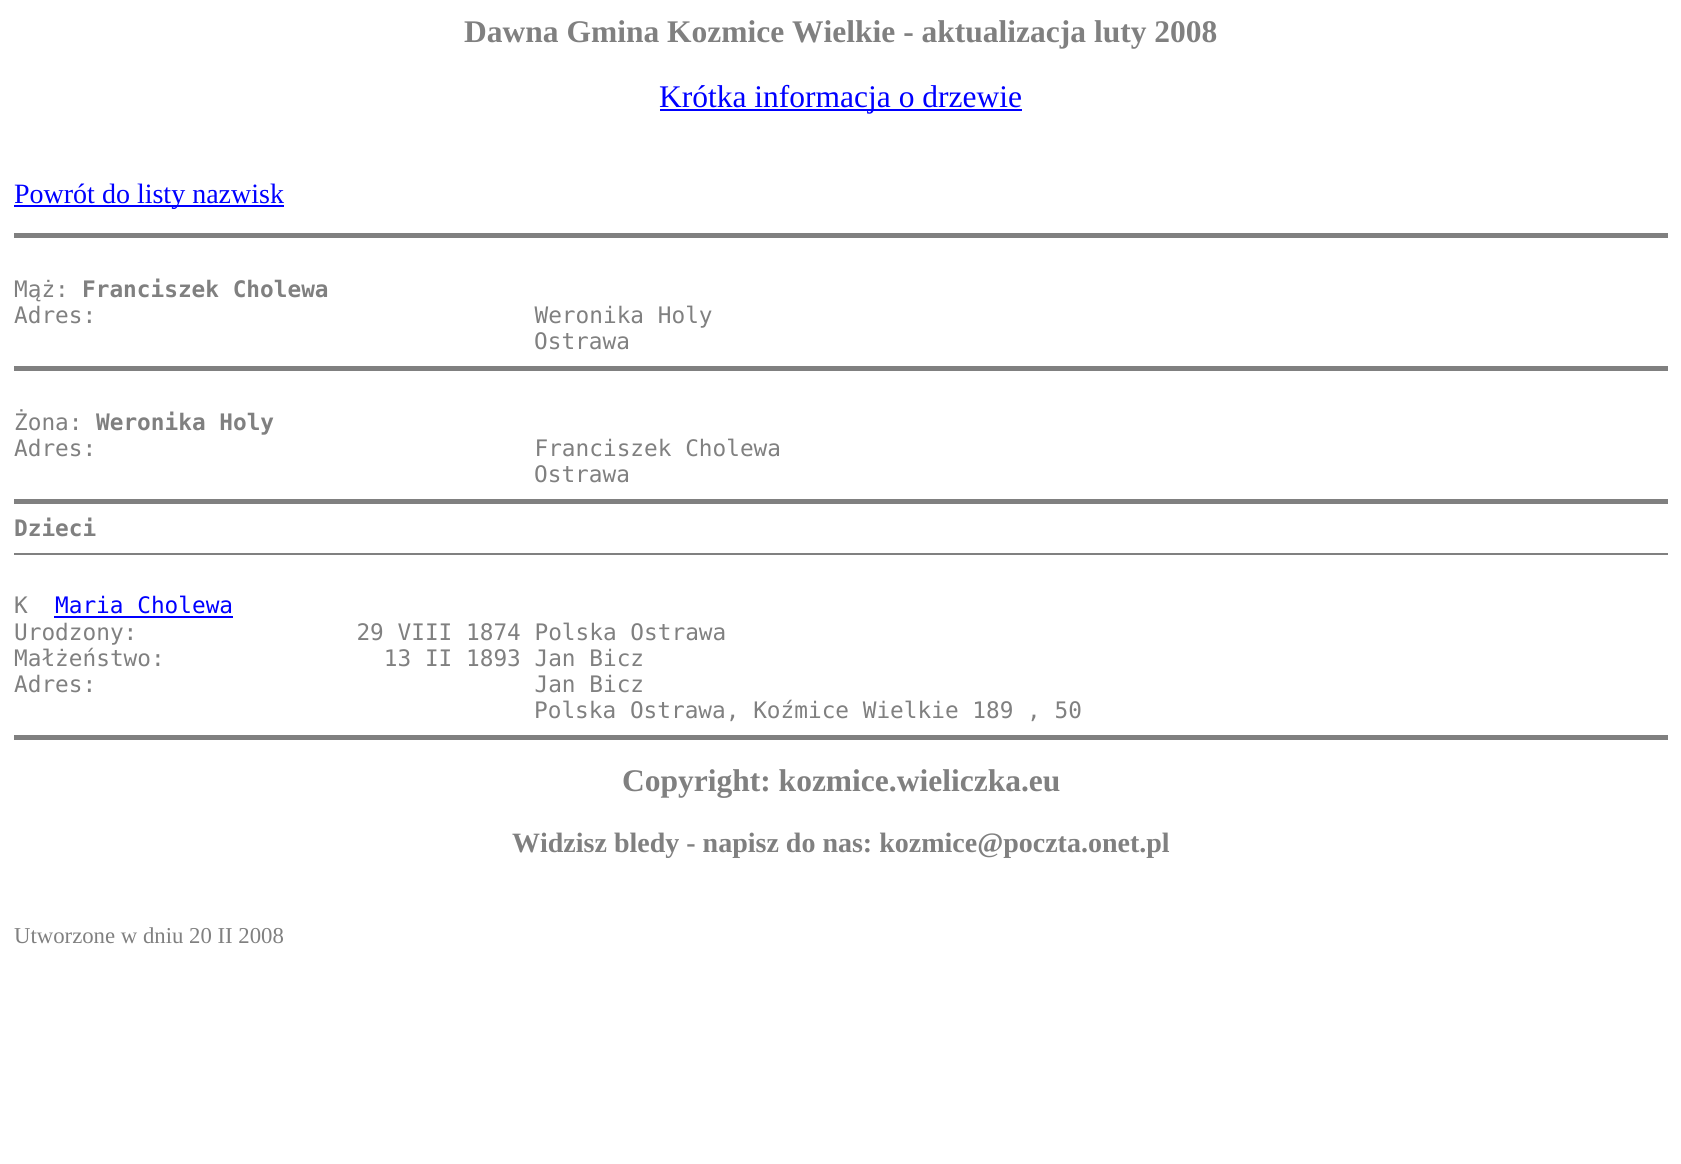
#include <cairo/cairo.h>
#include <math.h>
#include <stddef.h>


static void draw(cairo_t *cr) {
  cairo_set_source_rgb(cr, 1, 1, 1);
  cairo_paint(cr);
  cairo_set_source_rgb(cr, 0, 0, 1);
  cairo_rectangle(cr, 660, 109, 362, 2);
  cairo_fill(cr);
  cairo_rectangle(cr, 14, 205, 270, 2);
  cairo_fill(cr);
  cairo_set_source_rgb(cr, 128 / 255.0, 128 / 255.0, 128 / 255.0);
  cairo_rectangle(cr, 14, 233, 1654, 5);
  cairo_fill(cr);
  cairo_rectangle(cr, 14, 366, 1654, 5);
  cairo_fill(cr);
  cairo_rectangle(cr, 14, 499, 1654, 5);
  cairo_fill(cr);
  cairo_rectangle(cr, 14, 553, 1654, 2);
  cairo_fill(cr);
  cairo_set_source_rgb(cr, 0, 0, 1);
  cairo_rectangle(cr, 54, 616, 179, 2);
  cairo_fill(cr);
  cairo_set_source_rgb(cr, 128 / 255.0, 128 / 255.0, 128 / 255.0);
  cairo_rectangle(cr, 14, 735, 1654, 5);
  cairo_fill(cr);
  cairo_select_font_face(cr, "Liberation Serif", CAIRO_FONT_SLANT_NORMAL, CAIRO_FONT_WEIGHT_BOLD);
  cairo_set_font_size(cr, 31.5);
  cairo_move_to(cr, 464, 42);
  cairo_show_text(cr, "Dawna Gmina Kozmice Wielkie - aktualizacja luty 2008");
  cairo_select_font_face(cr, "Liberation Serif", CAIRO_FONT_SLANT_NORMAL, CAIRO_FONT_WEIGHT_NORMAL);
  cairo_set_source_rgb(cr, 0, 0, 1);
  cairo_move_to(cr, 659, 107);
  cairo_show_text(cr, "Krótka informacja o drzewie");
  cairo_set_font_size(cr, 28);
  cairo_move_to(cr, 14, 203);
  cairo_show_text(cr, "Powrót do listy nazwisk");
  cairo_select_font_face(cr, "DejaVu Sans Mono", CAIRO_FONT_SLANT_NORMAL, CAIRO_FONT_WEIGHT_NORMAL);
  cairo_set_font_size(cr, 22.75);
  cairo_set_source_rgb(cr, 128 / 255.0, 128 / 255.0, 128 / 255.0);
  cairo_move_to(cr, 14, 297);
  cairo_show_text(cr, "Mąż:");
  cairo_select_font_face(cr, "DejaVu Sans Mono", CAIRO_FONT_SLANT_NORMAL, CAIRO_FONT_WEIGHT_BOLD);
  cairo_move_to(cr, 82, 297);
  cairo_show_text(cr, "Franciszek Cholewa");
  cairo_select_font_face(cr, "DejaVu Sans Mono", CAIRO_FONT_SLANT_NORMAL, CAIRO_FONT_WEIGHT_NORMAL);
  cairo_move_to(cr, 14, 323);
  cairo_show_text(cr, "Adres:                                Weronika Holy");
  cairo_move_to(cr, 534, 349);
  cairo_show_text(cr, "Ostrawa");
  cairo_move_to(cr, 14, 430);
  cairo_show_text(cr, "Żona:");
  cairo_select_font_face(cr, "DejaVu Sans Mono", CAIRO_FONT_SLANT_NORMAL, CAIRO_FONT_WEIGHT_BOLD);
  cairo_move_to(cr, 96, 430);
  cairo_show_text(cr, "Weronika Holy");
  cairo_select_font_face(cr, "DejaVu Sans Mono", CAIRO_FONT_SLANT_NORMAL, CAIRO_FONT_WEIGHT_NORMAL);
  cairo_move_to(cr, 14, 456);
  cairo_show_text(cr, "Adres:                                Franciszek Cholewa");
  cairo_move_to(cr, 534, 482);
  cairo_show_text(cr, "Ostrawa");
  cairo_select_font_face(cr, "DejaVu Sans Mono", CAIRO_FONT_SLANT_NORMAL, CAIRO_FONT_WEIGHT_BOLD);
  cairo_move_to(cr, 14, 536);
  cairo_show_text(cr, "Dzieci");
  cairo_select_font_face(cr, "DejaVu Sans Mono", CAIRO_FONT_SLANT_NORMAL, CAIRO_FONT_WEIGHT_NORMAL);
  cairo_move_to(cr, 14, 613);
  cairo_show_text(cr, "K");
  cairo_set_source_rgb(cr, 0, 0, 1);
  cairo_move_to(cr, 55, 613);
  cairo_show_text(cr, "Maria Cholewa");
  cairo_set_source_rgb(cr, 128 / 255.0, 128 / 255.0, 128 / 255.0);
  cairo_move_to(cr, 14, 640);
  cairo_show_text(cr, "Urodzony:                29 VIII 1874 Polska Ostrawa");
  cairo_move_to(cr, 14, 666);
  cairo_show_text(cr, "Małżeństwo:                13 II 1893 Jan Bicz");
  cairo_move_to(cr, 14, 692);
  cairo_show_text(cr, "Adres:                                Jan Bicz");
  cairo_move_to(cr, 534, 718);
  cairo_show_text(cr, "Polska Ostrawa, Koźmice Wielkie 189 , 50");
  cairo_select_font_face(cr, "Liberation Serif", CAIRO_FONT_SLANT_NORMAL, CAIRO_FONT_WEIGHT_BOLD);
  cairo_set_font_size(cr, 31.5);
  cairo_move_to(cr, 622, 791);
  cairo_show_text(cr, "Copyright: kozmice.wieliczka.eu");
  cairo_set_font_size(cr, 28);
  cairo_move_to(cr, 512, 852);
  cairo_show_text(cr, "Widzisz bledy - napisz do nas: kozmice@poczta.onet.pl");
  cairo_select_font_face(cr, "Liberation Serif", CAIRO_FONT_SLANT_NORMAL, CAIRO_FONT_WEIGHT_NORMAL);
  cairo_set_font_size(cr, 22.75);
  cairo_move_to(cr, 14, 943);
  cairo_show_text(cr, "Utworzone w dniu 20 II 2008");
}

int main(void) {
  cairo_surface_t *surface = cairo_image_surface_create(CAIRO_FORMAT_RGB24, 1681, 1164);
  cairo_t *cr = cairo_create(surface);
  cairo_font_options_t *options = cairo_font_options_create();
  cairo_font_options_set_hint_metrics(options, CAIRO_HINT_METRICS_OFF);
  cairo_font_options_set_hint_style(options, CAIRO_HINT_STYLE_NONE);
  cairo_set_font_options(cr, options);
  cairo_set_miter_limit(cr, 4);
  draw(cr);
  cairo_surface_write_to_png(surface, "out.png");
  cairo_font_options_destroy(options);
  cairo_destroy(cr);
  cairo_surface_destroy(surface);
  return 0;
}
